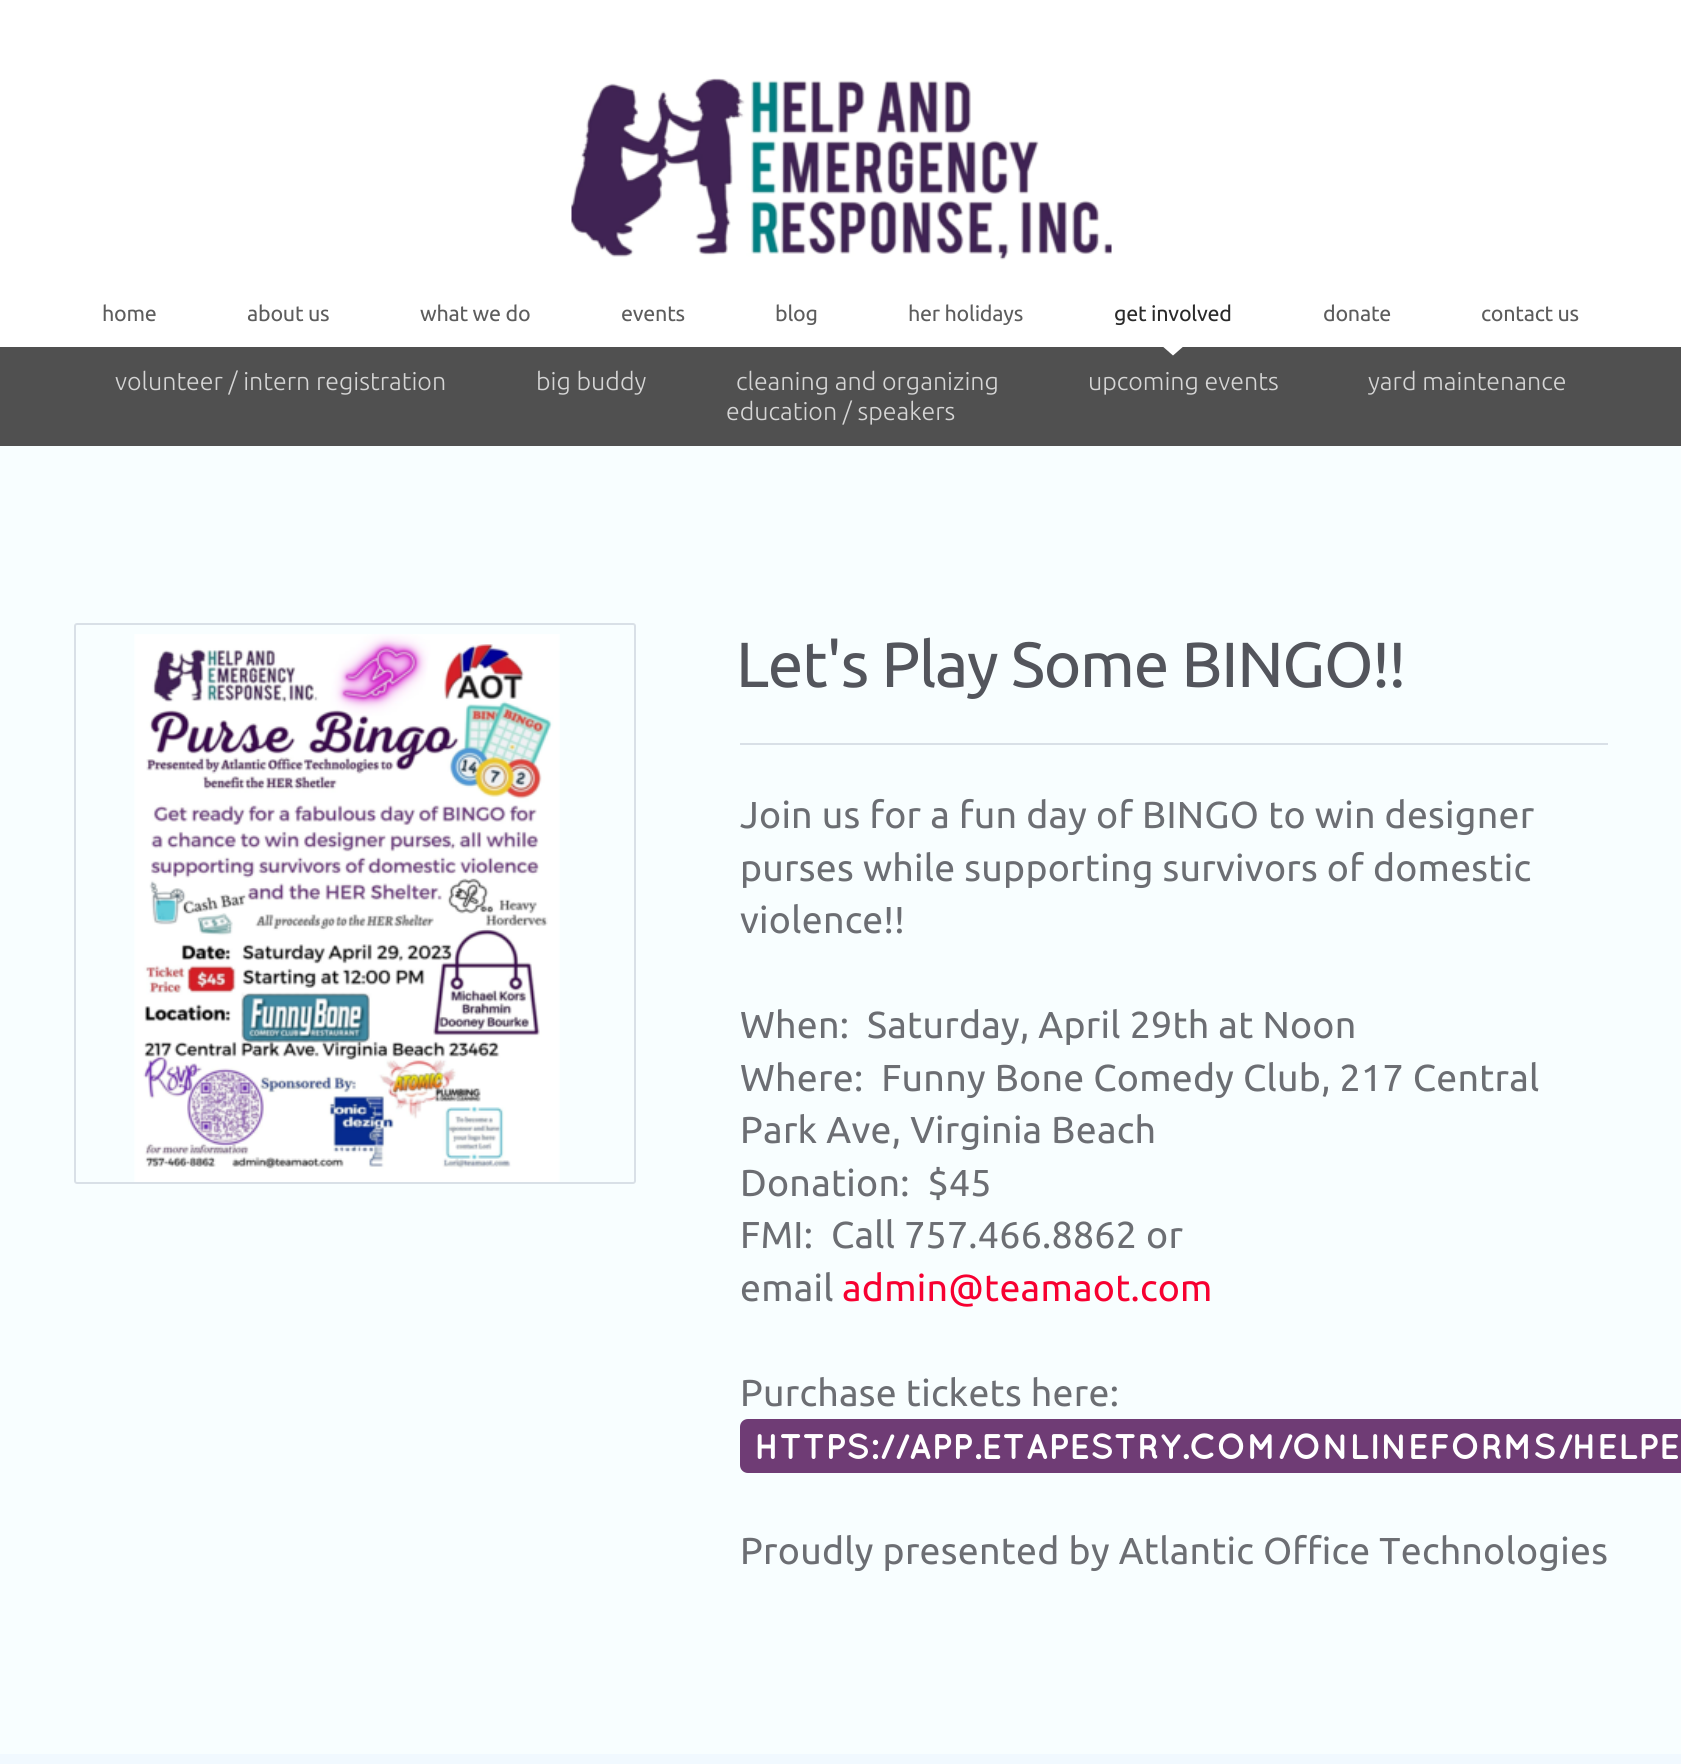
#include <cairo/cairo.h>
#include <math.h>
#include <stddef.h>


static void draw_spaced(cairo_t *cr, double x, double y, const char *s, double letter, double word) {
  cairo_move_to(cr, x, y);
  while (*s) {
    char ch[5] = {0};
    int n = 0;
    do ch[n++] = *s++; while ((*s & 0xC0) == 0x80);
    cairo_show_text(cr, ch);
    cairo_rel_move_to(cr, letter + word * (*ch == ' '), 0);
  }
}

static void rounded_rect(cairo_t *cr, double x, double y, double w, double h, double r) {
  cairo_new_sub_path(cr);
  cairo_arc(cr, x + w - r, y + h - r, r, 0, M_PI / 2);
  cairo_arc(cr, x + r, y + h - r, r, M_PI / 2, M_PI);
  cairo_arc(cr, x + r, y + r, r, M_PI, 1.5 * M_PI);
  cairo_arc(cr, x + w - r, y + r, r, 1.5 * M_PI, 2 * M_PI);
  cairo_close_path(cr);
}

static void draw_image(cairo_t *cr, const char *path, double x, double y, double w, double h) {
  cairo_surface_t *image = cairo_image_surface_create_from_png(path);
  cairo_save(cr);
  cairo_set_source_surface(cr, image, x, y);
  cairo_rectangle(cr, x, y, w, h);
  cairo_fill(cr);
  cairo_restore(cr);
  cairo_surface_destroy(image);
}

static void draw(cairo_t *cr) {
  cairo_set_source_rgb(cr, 248 / 255.0, 254 / 255.0, 1);
  cairo_paint(cr);
  cairo_set_source_rgb(cr, 1, 1, 1);
  cairo_rectangle(cr, 0, 0, 1681, 347);
  cairo_fill(cr);
  draw_image(cr, "images/1.png", 571, 78, 541, 182);
  cairo_set_source_rgb(cr, 80 / 255.0, 80 / 255.0, 80 / 255.0);
  cairo_rectangle(cr, 0, 347, 1681, 99);
  cairo_fill(cr);
  cairo_set_source_rgb(cr, 1, 1, 1);
  cairo_new_path(cr);
  cairo_move_to(cr, 1161, 345);
  cairo_line_to(cr, 1185, 345);
  cairo_line_to(cr, 1173, 355.5);
  cairo_close_path(cr);
  cairo_fill(cr);
  rounded_rect(cr, 75, 624, 560, 559, 2);
  cairo_set_source_rgb(cr, 217 / 255.0, 224 / 255.0, 231 / 255.0);
  cairo_stroke(cr);
  draw_image(cr, "images/2.png", 134, 634, 426, 548);
  cairo_rectangle(cr, 740, 743, 868, 2);
  cairo_fill(cr);
  cairo_set_source_rgb(cr, 111 / 255.0, 60 / 255.0, 117 / 255.0);
  cairo_new_path(cr);
  cairo_move_to(cr, 748, 1419);
  cairo_line_to(cr, 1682, 1419);
  cairo_line_to(cr, 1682, 1473);
  cairo_line_to(cr, 748, 1473);
  cairo_curve_to(cr, 743.5, 1473, 740, 1469.5, 740, 1465);
  cairo_line_to(cr, 740, 1427);
  cairo_curve_to(cr, 740, 1422.5, 743.5, 1419, 748, 1419);
  cairo_close_path(cr);
  cairo_fill(cr);
  cairo_set_source_rgb(cr, 241 / 255.0, 249 / 255.0, 1);
  cairo_rectangle(cr, 0, 1754, 1681, 10);
  cairo_fill(cr);
  cairo_select_font_face(cr, "Ubuntu", CAIRO_FONT_SLANT_NORMAL, CAIRO_FONT_WEIGHT_NORMAL);
  cairo_set_font_size(cr, 21.5);
  cairo_set_source_rgb(cr, 93 / 255.0, 93 / 255.0, 93 / 255.0);
  draw_spaced(cr, 102, 321, "home", -0.25, 0);
  draw_spaced(cr, 247, 321, "about us", -0.25, 0);
  draw_spaced(cr, 420, 321, "what we do", -0.25, 0);
  draw_spaced(cr, 621, 321, "events", -0.25, 0);
  draw_spaced(cr, 775, 321, "blog", -0.25, 0);
  draw_spaced(cr, 908, 321, "her holidays", -0.25, 0);
  cairo_set_source_rgb(cr, 42 / 255.0, 42 / 255.0, 42 / 255.0);
  draw_spaced(cr, 1114, 321, "get involved", -0.25, 0);
  cairo_set_source_rgb(cr, 93 / 255.0, 93 / 255.0, 93 / 255.0);
  draw_spaced(cr, 1323, 321, "donate", -0.25, 0);
  draw_spaced(cr, 1481, 321, "contact us", -0.25, 0);
  cairo_select_font_face(cr, "Ubuntu Light", CAIRO_FONT_SLANT_NORMAL, CAIRO_FONT_WEIGHT_NORMAL);
  cairo_set_font_size(cr, 25);
  cairo_set_source_rgb(cr, 213 / 255.0, 213 / 255.0, 213 / 255.0);
  cairo_move_to(cr, 115, 390);
  cairo_show_text(cr, "volunteer / intern registration");
  cairo_move_to(cr, 536, 390);
  cairo_show_text(cr, "big buddy");
  cairo_move_to(cr, 736, 390);
  cairo_show_text(cr, "cleaning and organizing");
  cairo_move_to(cr, 1088, 390);
  cairo_show_text(cr, "upcoming events");
  cairo_move_to(cr, 1368, 390);
  cairo_show_text(cr, "yard maintenance");
  cairo_move_to(cr, 726, 420);
  cairo_show_text(cr, "education / speakers");
  cairo_select_font_face(cr, "Ubuntu", CAIRO_FONT_SLANT_NORMAL, CAIRO_FONT_WEIGHT_NORMAL);
  cairo_set_font_size(cr, 63.75);
  cairo_set_source_rgb(cr, 83 / 255.0, 85 / 255.0, 92 / 255.0);
  draw_spaced(cr, 736, 687, "Let's Play Some BINGO!!", -1.25, 0);
  cairo_set_font_size(cr, 37.5);
  cairo_set_source_rgb(cr, 108 / 255.0, 110 / 255.0, 115 / 255.0);
  draw_spaced(cr, 740, 828, "Join us for a fun day of BINGO to win designer", 0.25, 0);
  draw_spaced(cr, 740, 881, "purses while supporting survivors of domestic", 0.25, 0);
  draw_spaced(cr, 740, 933, "violence!!", 0.25, 0);
  draw_spaced(cr, 740, 1038, "When:  Saturday, April 29th at Noon", 0.25, 0);
  draw_spaced(cr, 740, 1091, "Where:  Funny Bone Comedy Club, 217 Central", 0.25, 0);
  draw_spaced(cr, 740, 1143, "Park Ave, Virginia Beach", 0.25, 0);
  draw_spaced(cr, 740, 1196, "Donation:  $45", 0.25, 0);
  draw_spaced(cr, 740, 1248, "FMI:  Call 757.466.8862 or", 0.25, 0);
  draw_spaced(cr, 740, 1301, "email", 0.25, 0);
  cairo_set_source_rgb(cr, 247 / 255.0, 0, 49 / 255.0);
  draw_spaced(cr, 842, 1301, "admin@teamaot.com", 0.25, 0);
  cairo_set_source_rgb(cr, 108 / 255.0, 110 / 255.0, 115 / 255.0);
  draw_spaced(cr, 740, 1406, "Purchase tickets here:", 0.25, 0);
  cairo_select_font_face(cr, "Quicksand", CAIRO_FONT_SLANT_NORMAL, CAIRO_FONT_WEIGHT_BOLD);
  cairo_set_font_size(cr, 35.6);
  cairo_set_source_rgb(cr, 1, 1, 1);
  cairo_move_to(cr, 754, 1459);
  cairo_show_text(cr, "HTTPS://APP.ETAPESTRY.COM/ONLINEFORMS/HELPE");
  cairo_select_font_face(cr, "Ubuntu", CAIRO_FONT_SLANT_NORMAL, CAIRO_FONT_WEIGHT_NORMAL);
  cairo_set_font_size(cr, 37.5);
  cairo_set_source_rgb(cr, 108 / 255.0, 110 / 255.0, 115 / 255.0);
  draw_spaced(cr, 740, 1564, "Proudly presented by Atlantic Office Technologies", 0.25, 0);
}

int main(void) {
  cairo_surface_t *surface = cairo_image_surface_create(CAIRO_FORMAT_RGB24, 1681, 1764);
  cairo_t *cr = cairo_create(surface);
  cairo_font_options_t *options = cairo_font_options_create();
  cairo_font_options_set_hint_metrics(options, CAIRO_HINT_METRICS_OFF);
  cairo_font_options_set_hint_style(options, CAIRO_HINT_STYLE_NONE);
  cairo_set_font_options(cr, options);
  cairo_set_miter_limit(cr, 4);
  draw(cr);
  cairo_surface_write_to_png(surface, "out.png");
  cairo_font_options_destroy(options);
  cairo_destroy(cr);
  cairo_surface_destroy(surface);
  return 0;
}
